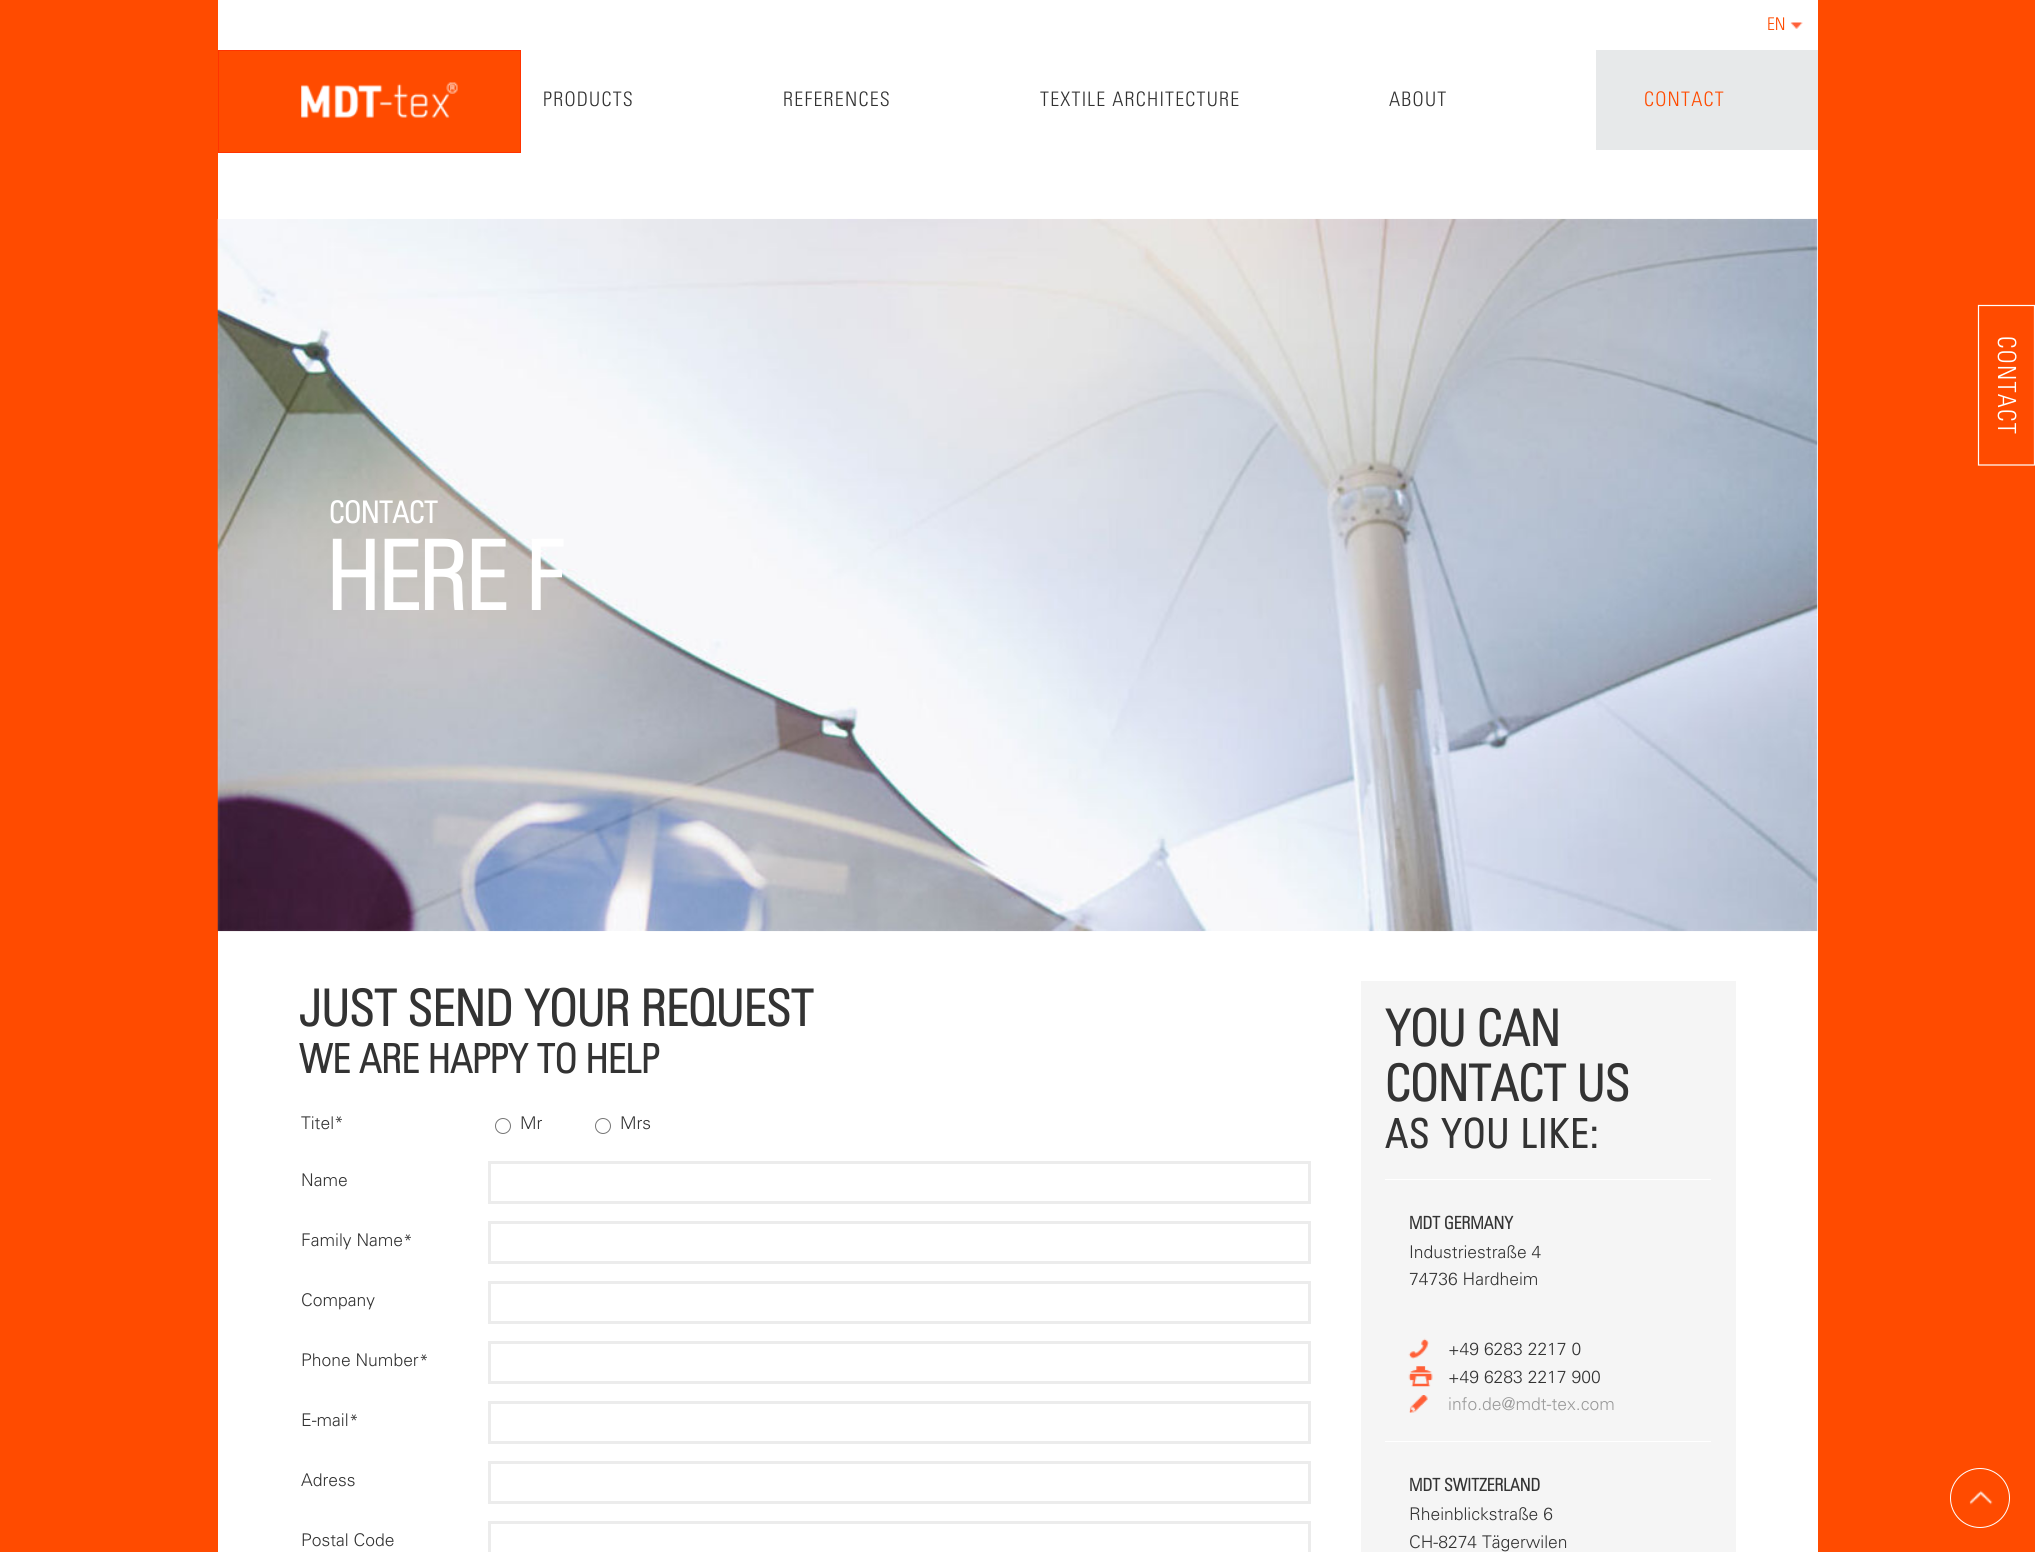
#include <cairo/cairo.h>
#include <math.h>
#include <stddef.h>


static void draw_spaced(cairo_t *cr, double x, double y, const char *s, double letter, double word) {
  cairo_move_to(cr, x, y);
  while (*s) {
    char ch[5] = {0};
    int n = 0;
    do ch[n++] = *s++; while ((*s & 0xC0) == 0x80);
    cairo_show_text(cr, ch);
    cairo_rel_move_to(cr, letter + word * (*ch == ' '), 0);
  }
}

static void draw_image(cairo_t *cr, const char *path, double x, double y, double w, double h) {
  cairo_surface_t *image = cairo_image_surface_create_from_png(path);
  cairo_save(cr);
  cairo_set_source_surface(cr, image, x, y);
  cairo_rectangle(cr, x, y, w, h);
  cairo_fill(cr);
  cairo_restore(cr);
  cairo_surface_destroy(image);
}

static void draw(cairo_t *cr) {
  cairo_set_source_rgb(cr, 1, 75 / 255.0, 0);
  cairo_paint(cr);
  cairo_set_source_rgb(cr, 1, 1, 1);
  cairo_rectangle(cr, 218, 0, 1600, 1552);
  cairo_fill(cr);
  draw_image(cr, "images/1.png", 1790, 22, 13, 7);
  cairo_set_source_rgb(cr, 1, 75 / 255.0, 0);
  cairo_rectangle(cr, 218.5, 50.5, 302, 102);
  cairo_fill_preserve(cr);
  cairo_set_source_rgb(cr, 1, 51 / 255.0, 0);
  cairo_set_line_width(cr, 1);
  cairo_stroke(cr);
  draw_image(cr, "images/2.png", 301, 82, 157, 36);
  cairo_set_source_rgb(cr, 231 / 255.0, 233 / 255.0, 234 / 255.0);
  cairo_rectangle(cr, 1596, 50, 222, 100);
  cairo_fill(cr);
  cairo_new_path(cr);
  cairo_move_to(cr, 2034.5, 305.5);
  cairo_line_to(cr, 2034.5, 465);
  cairo_line_to(cr, 1978.5, 465);
  cairo_line_to(cr, 1978.5, 305.5);
  cairo_close_path(cr);
  cairo_set_source_rgb(cr, 1, 1, 1);
  cairo_set_line_width(cr, 1.2);
  cairo_stroke(cr);
  draw_image(cr, "images/3.png", 217, 218, 1601, 714);
  cairo_arc(cr, 503, 1126, 7.5, 0, 2 * M_PI);
  cairo_set_source_rgb(cr, 118 / 255.0, 118 / 255.0, 118 / 255.0);
  cairo_set_line_width(cr, 1);
  cairo_stroke(cr);
  cairo_arc(cr, 603, 1126, 7.5, 0, 2 * M_PI);
  cairo_stroke(cr);
  cairo_rectangle(cr, 489.5, 1162.5, 820, 40);
  cairo_set_source_rgb(cr, 236 / 255.0, 236 / 255.0, 236 / 255.0);
  cairo_set_line_width(cr, 3);
  cairo_stroke(cr);
  cairo_rectangle(cr, 489.5, 1222.5, 820, 40);
  cairo_stroke(cr);
  cairo_rectangle(cr, 489.5, 1282.5, 820, 40);
  cairo_stroke(cr);
  cairo_rectangle(cr, 489.5, 1342.5, 820, 40);
  cairo_stroke(cr);
  cairo_rectangle(cr, 489.5, 1402.5, 820, 40);
  cairo_stroke(cr);
  cairo_rectangle(cr, 489.5, 1462.5, 820, 40);
  cairo_stroke(cr);
  cairo_rectangle(cr, 489.5, 1522.5, 820, 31);
  cairo_stroke(cr);
  cairo_set_source_rgb(cr, 245 / 255.0, 245 / 255.0, 245 / 255.0);
  cairo_rectangle(cr, 1361, 981, 375, 571);
  cairo_fill(cr);
  cairo_set_source_rgb(cr, 1, 1, 1);
  cairo_rectangle(cr, 1385, 1179, 326, 1);
  cairo_fill(cr);
  draw_image(cr, "images/4.png", 1408, 1338, 21, 21);
  draw_image(cr, "images/5.png", 1408, 1366, 25, 21);
  draw_image(cr, "images/6.png", 1409, 1395, 19, 18);
  cairo_rectangle(cr, 1385, 1441, 326, 1);
  cairo_fill(cr);
  draw_image(cr, "images/7.png", 1969, 1490, 24, 15);
  cairo_arc(cr, 1980, 1498, 29.5, 0, 2 * M_PI);
  cairo_set_line_width(cr, 1);
  cairo_stroke(cr);
  cairo_select_font_face(cr, "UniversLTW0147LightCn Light", CAIRO_FONT_SLANT_NORMAL, CAIRO_FONT_WEIGHT_NORMAL);
  cairo_set_font_size(cr, 17.5);
  cairo_set_source_rgb(cr, 1, 75 / 255.0, 0);
  cairo_move_to(cr, 1767, 30);
  cairo_show_text(cr, "EN");
  cairo_set_font_size(cr, 20);
  cairo_set_source_rgb(cr, 51 / 255.0, 51 / 255.0, 51 / 255.0);
  draw_spaced(cr, 543, 106, "PRODUCTS", 1.25, 0);
  draw_spaced(cr, 783, 106, "REFERENCES", 1.25, 0);
  draw_spaced(cr, 1040, 106, "TEXTILE ARCHITECTURE", 1.25, 0);
  draw_spaced(cr, 1389, 106, "ABOUT", 1.25, 0);
  cairo_set_source_rgb(cr, 1, 75 / 255.0, 0);
  draw_spaced(cr, 1644, 106, "CONTACT", 1.25, 0);
  cairo_set_font_size(cr, 25);
  cairo_set_source_rgb(cr, 1, 1, 1);
  cairo_save(cr);
  cairo_translate(cr, 1998, 336);
  cairo_rotate(cr, 90 * M_PI / 180);
  draw_spaced(cr, 0, 0, "CONTACT", 1.25, 0);
  cairo_restore(cr);
  cairo_select_font_face(cr, "UniversLTW0147LightCn", CAIRO_FONT_SLANT_NORMAL, CAIRO_FONT_WEIGHT_BOLD);
  cairo_set_font_size(cr, 30);
  cairo_move_to(cr, 329, 523);
  cairo_show_text(cr, "CONTACT");
  cairo_set_font_size(cr, 95);
  draw_spaced(cr, 326, 610, "HERE F", -1.25, 0);
  cairo_set_font_size(cr, 50);
  cairo_set_source_rgb(cr, 51 / 255.0, 51 / 255.0, 51 / 255.0);
  cairo_move_to(cr, 299, 1026);
  cairo_show_text(cr, "JUST SEND YOUR REQUEST");
  cairo_set_font_size(cr, 40);
  cairo_move_to(cr, 299, 1073);
  cairo_show_text(cr, "WE ARE HAPPY TO HELP");
  cairo_select_font_face(cr, "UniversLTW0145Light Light", CAIRO_FONT_SLANT_NORMAL, CAIRO_FONT_WEIGHT_NORMAL);
  cairo_set_font_size(cr, 17.5);
  cairo_move_to(cr, 301, 1129);
  cairo_show_text(cr, "Titel*");
  cairo_move_to(cr, 520, 1129);
  cairo_show_text(cr, "Mr");
  cairo_move_to(cr, 620, 1129);
  cairo_show_text(cr, "Mrs");
  cairo_move_to(cr, 301, 1186);
  cairo_show_text(cr, "Name");
  cairo_move_to(cr, 301, 1246);
  cairo_show_text(cr, "Family Name");
  cairo_move_to(cr, 403, 1247);
  cairo_show_text(cr, "*");
  cairo_move_to(cr, 301, 1306);
  cairo_show_text(cr, "Company");
  cairo_move_to(cr, 301, 1366);
  cairo_show_text(cr, "Phone Number");
  cairo_move_to(cr, 419, 1367);
  cairo_show_text(cr, "*");
  cairo_move_to(cr, 301, 1426);
  cairo_show_text(cr, "E-mail");
  cairo_move_to(cr, 349, 1427);
  cairo_show_text(cr, "*");
  cairo_move_to(cr, 301, 1486);
  cairo_show_text(cr, "Adress");
  cairo_move_to(cr, 301, 1546);
  cairo_show_text(cr, "Postal Code");
  cairo_select_font_face(cr, "UniversLTW0147LightCn", CAIRO_FONT_SLANT_NORMAL, CAIRO_FONT_WEIGHT_BOLD);
  cairo_set_font_size(cr, 50);
  cairo_move_to(cr, 1385, 1046);
  cairo_show_text(cr, "YOU CAN");
  cairo_move_to(cr, 1385, 1101);
  cairo_show_text(cr, "CONTACT US");
  cairo_set_font_size(cr, 40);
  draw_spaced(cr, 1385, 1148, "AS YOU LIKE:", 1.6, 0);
  cairo_set_font_size(cr, 17.5);
  cairo_move_to(cr, 1409, 1229);
  cairo_show_text(cr, "MDT GERMANY");
  cairo_select_font_face(cr, "UniversLTW0145Light Light", CAIRO_FONT_SLANT_NORMAL, CAIRO_FONT_WEIGHT_NORMAL);
  cairo_move_to(cr, 1409, 1258);
  cairo_show_text(cr, "Industriestraße 4");
  cairo_move_to(cr, 1409, 1285);
  cairo_show_text(cr, "74736 Hardheim");
  cairo_move_to(cr, 1448, 1355);
  cairo_show_text(cr, "+49 6283 2217 0");
  cairo_move_to(cr, 1448, 1383);
  cairo_show_text(cr, "+49 6283 2217 900");
  cairo_set_source_rgb(cr, 153 / 255.0, 153 / 255.0, 153 / 255.0);
  cairo_move_to(cr, 1448, 1410);
  cairo_show_text(cr, "info.de@mdt-tex.com");
  cairo_select_font_face(cr, "UniversLTW0147LightCn", CAIRO_FONT_SLANT_NORMAL, CAIRO_FONT_WEIGHT_BOLD);
  cairo_set_source_rgb(cr, 51 / 255.0, 51 / 255.0, 51 / 255.0);
  cairo_move_to(cr, 1409, 1491);
  cairo_show_text(cr, "MDT SWITZERLAND");
  cairo_select_font_face(cr, "UniversLTW0145Light Light", CAIRO_FONT_SLANT_NORMAL, CAIRO_FONT_WEIGHT_NORMAL);
  cairo_move_to(cr, 1409, 1520);
  cairo_show_text(cr, "Rheinblickstraße 6");
  cairo_move_to(cr, 1409, 1548);
  cairo_show_text(cr, "CH-8274 Tägerwilen");
}

int main(void) {
  cairo_surface_t *surface = cairo_image_surface_create(CAIRO_FORMAT_RGB24, 2035, 1552);
  cairo_t *cr = cairo_create(surface);
  cairo_font_options_t *options = cairo_font_options_create();
  cairo_font_options_set_hint_metrics(options, CAIRO_HINT_METRICS_OFF);
  cairo_font_options_set_hint_style(options, CAIRO_HINT_STYLE_NONE);
  cairo_set_font_options(cr, options);
  cairo_set_miter_limit(cr, 4);
  draw(cr);
  cairo_surface_write_to_png(surface, "out.png");
  cairo_font_options_destroy(options);
  cairo_destroy(cr);
  cairo_surface_destroy(surface);
  return 0;
}
